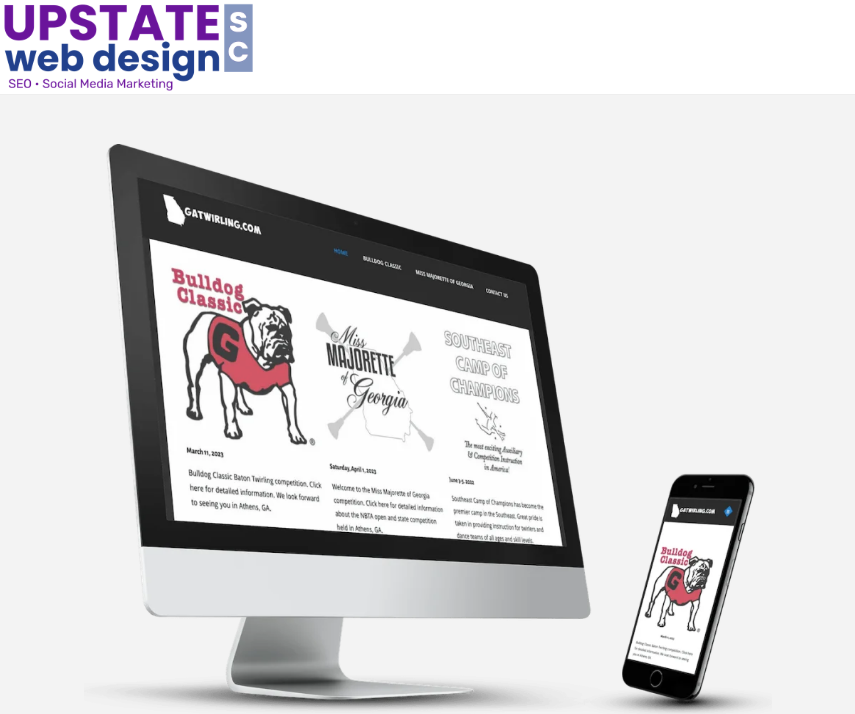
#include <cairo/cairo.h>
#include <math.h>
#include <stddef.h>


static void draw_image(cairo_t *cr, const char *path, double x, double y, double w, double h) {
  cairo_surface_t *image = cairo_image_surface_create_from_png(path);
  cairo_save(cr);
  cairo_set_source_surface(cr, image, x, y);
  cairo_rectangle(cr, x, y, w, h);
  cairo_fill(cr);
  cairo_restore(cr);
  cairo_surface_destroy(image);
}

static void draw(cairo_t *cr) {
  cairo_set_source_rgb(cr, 1, 1, 1);
  cairo_paint(cr);
  cairo_set_source_rgb(cr, 238 / 255.0, 238 / 255.0, 238 / 255.0);
  cairo_rectangle(cr, 0, 94, 855, 1);
  cairo_fill(cr);
  draw_image(cr, "images/1.png", 4, 3, 249, 88);
  cairo_set_source_rgb(cr, 243 / 255.0, 243 / 255.0, 243 / 255.0);
  cairo_rectangle(cr, 0, 95, 855, 619);
  cairo_fill(cr);
  draw_image(cr, "images/2.png", 84, 144, 688, 570);
}

int main(void) {
  cairo_surface_t *surface = cairo_image_surface_create(CAIRO_FORMAT_RGB24, 855, 714);
  cairo_t *cr = cairo_create(surface);
  cairo_font_options_t *options = cairo_font_options_create();
  cairo_font_options_set_hint_metrics(options, CAIRO_HINT_METRICS_OFF);
  cairo_font_options_set_hint_style(options, CAIRO_HINT_STYLE_NONE);
  cairo_set_font_options(cr, options);
  cairo_set_miter_limit(cr, 4);
  draw(cr);
  cairo_surface_write_to_png(surface, "out.png");
  cairo_font_options_destroy(options);
  cairo_destroy(cr);
  cairo_surface_destroy(surface);
  return 0;
}
